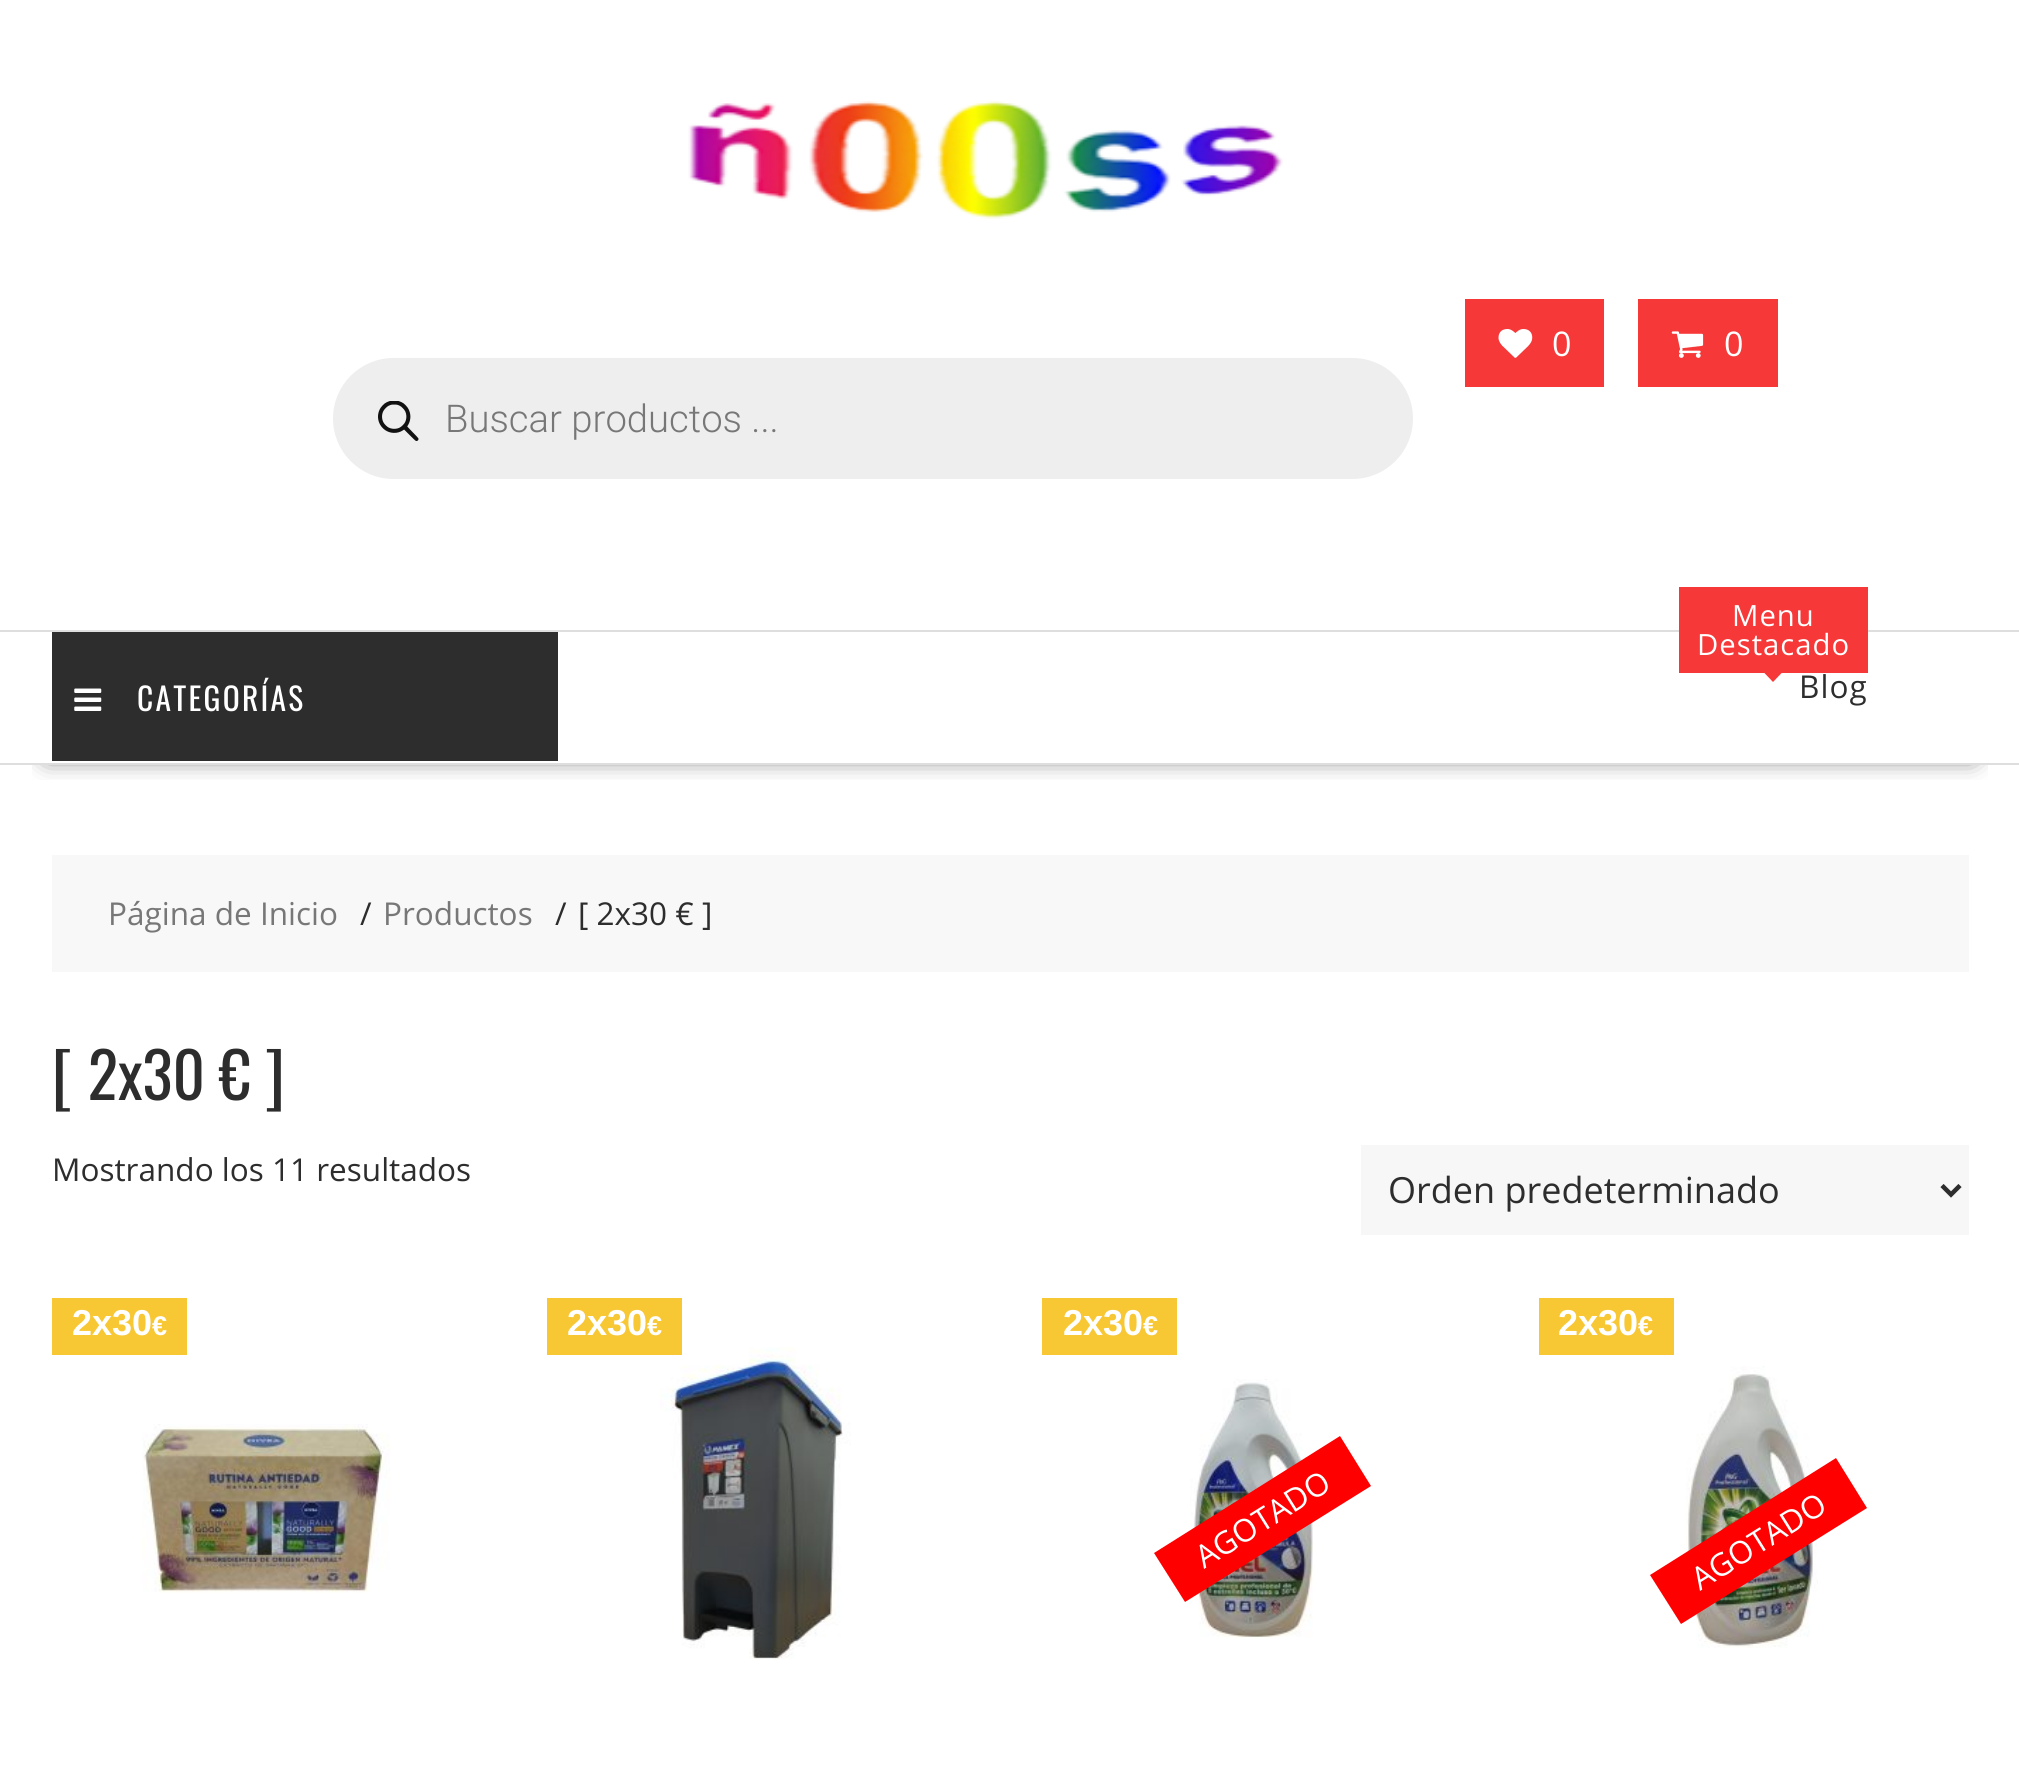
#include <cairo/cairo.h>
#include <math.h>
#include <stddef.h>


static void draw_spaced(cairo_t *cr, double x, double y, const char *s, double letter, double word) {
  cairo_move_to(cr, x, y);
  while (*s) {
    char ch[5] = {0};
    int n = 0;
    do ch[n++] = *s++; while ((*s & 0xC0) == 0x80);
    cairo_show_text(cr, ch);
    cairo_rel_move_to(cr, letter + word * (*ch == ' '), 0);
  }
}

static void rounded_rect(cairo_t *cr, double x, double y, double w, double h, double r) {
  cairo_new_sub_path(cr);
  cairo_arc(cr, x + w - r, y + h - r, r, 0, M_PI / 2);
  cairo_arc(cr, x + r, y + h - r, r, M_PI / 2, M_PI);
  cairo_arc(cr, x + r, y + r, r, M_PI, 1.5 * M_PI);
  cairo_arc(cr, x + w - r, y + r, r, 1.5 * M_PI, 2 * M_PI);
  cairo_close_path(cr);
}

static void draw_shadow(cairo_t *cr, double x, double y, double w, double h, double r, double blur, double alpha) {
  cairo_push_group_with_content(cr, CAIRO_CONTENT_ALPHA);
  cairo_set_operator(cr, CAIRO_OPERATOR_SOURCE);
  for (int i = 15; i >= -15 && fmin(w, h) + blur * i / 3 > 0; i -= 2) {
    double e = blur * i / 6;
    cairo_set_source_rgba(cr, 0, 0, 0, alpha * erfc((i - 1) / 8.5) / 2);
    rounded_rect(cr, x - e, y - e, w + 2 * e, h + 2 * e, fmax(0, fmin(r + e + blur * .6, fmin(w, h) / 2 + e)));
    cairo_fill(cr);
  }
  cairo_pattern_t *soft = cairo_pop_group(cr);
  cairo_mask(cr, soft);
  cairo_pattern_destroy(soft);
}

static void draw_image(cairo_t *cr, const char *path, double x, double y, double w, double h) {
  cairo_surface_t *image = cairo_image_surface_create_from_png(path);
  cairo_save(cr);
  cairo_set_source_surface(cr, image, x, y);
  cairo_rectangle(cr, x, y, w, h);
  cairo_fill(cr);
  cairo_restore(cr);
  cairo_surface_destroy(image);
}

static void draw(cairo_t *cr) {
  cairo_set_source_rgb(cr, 1, 1, 1);
  cairo_paint(cr);
  draw_image(cr, "images/1.png", 688, 101, 595, 118);
  cairo_set_source_rgb(cr, 247 / 255.0, 56 / 255.0, 56 / 255.0);
  cairo_rectangle(cr, 1465, 299, 139, 88);
  cairo_fill(cr);
  draw_image(cr, "images/2.png", 1498, 329, 35, 29);
  cairo_rectangle(cr, 1638, 299, 140, 88);
  cairo_fill(cr);
  draw_image(cr, "images/3.png", 1671, 331, 33, 27);
  cairo_set_source_rgb(cr, 238 / 255.0, 238 / 255.0, 238 / 255.0);
  rounded_rect(cr, 333, 358, 1080, 121, 60.5);
  cairo_fill(cr);
  draw_image(cr, "images/4.png", 378, 401, 41, 40);
  cairo_save(cr);
  cairo_rectangle(cr, 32, 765, 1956, 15);
  cairo_clip(cr);
  cairo_set_source_rgb(cr, 0, 0, 0);
  draw_shadow(cr, 47, 716, 1926, 40, 0, 12.5, 0.75);
  cairo_restore(cr);
  cairo_set_source_rgb(cr, 222 / 255.0, 222 / 255.0, 222 / 255.0);
  cairo_rectangle(cr, 0, 630, 2019, 2);
  cairo_fill(cr);
  cairo_rectangle(cr, 0, 763, 2019, 2);
  cairo_fill(cr);
  cairo_set_source_rgb(cr, 45 / 255.0, 45 / 255.0, 45 / 255.0);
  cairo_rectangle(cr, 52, 632, 506, 129);
  cairo_fill(cr);
  draw_image(cr, "images/5.png", 74, 688, 28, 23);
  cairo_set_source_rgb(cr, 247 / 255.0, 56 / 255.0, 56 / 255.0);
  cairo_rectangle(cr, 1679, 587, 189, 86);
  cairo_fill(cr);
  cairo_new_path(cr);
  cairo_move_to(cr, 1762, 670.5);
  cairo_line_to(cr, 1784, 670.5);
  cairo_line_to(cr, 1773, 682);
  cairo_close_path(cr);
  cairo_fill(cr);
  cairo_set_source_rgb(cr, 248 / 255.0, 248 / 255.0, 248 / 255.0);
  cairo_rectangle(cr, 52, 855, 1917, 117);
  cairo_fill(cr);
  cairo_set_source_rgb(cr, 247 / 255.0, 247 / 255.0, 247 / 255.0);
  cairo_rectangle(cr, 1361, 1145, 608, 90);
  cairo_fill(cr);
  cairo_new_path(cr);
  cairo_move_to(cr, 1942, 1185.5);
  cairo_line_to(cr, 1951, 1194.5);
  cairo_line_to(cr, 1960, 1185.5);
  cairo_set_source_rgb(cr, 45 / 255.0, 45 / 255.0, 45 / 255.0);
  cairo_set_line_width(cr, 4.5);
  cairo_stroke(cr);
  cairo_set_source_rgb(cr, 248 / 255.0, 199 / 255.0, 52 / 255.0);
  cairo_rectangle(cr, 52, 1298, 135, 57);
  cairo_fill(cr);
  draw_image(cr, "images/6.png", 142, 1424, 248, 169);
  draw_image(cr, "images/7.png", 660, 1347, 191, 313);
  cairo_rectangle(cr, 547, 1298, 135, 57);
  cairo_fill(cr);
  cairo_rectangle(cr, 1042, 1298, 135, 57);
  cairo_fill(cr);
  draw_image(cr, "images/8.png", 1190, 1379, 123, 259);
  cairo_set_source_rgb(cr, 1, 0, 0);
  cairo_new_path(cr);
  cairo_move_to(cr, 1154, 1553);
  cairo_line_to(cr, 1340, 1436);
  cairo_line_to(cr, 1371, 1486);
  cairo_line_to(cr, 1185, 1602);
  cairo_close_path(cr);
  cairo_fill(cr);
  cairo_set_source_rgb(cr, 248 / 255.0, 199 / 255.0, 52 / 255.0);
  cairo_rectangle(cr, 1539, 1298, 135, 57);
  cairo_fill(cr);
  draw_image(cr, "images/9.png", 1686, 1366, 132, 282);
  cairo_set_source_rgb(cr, 1, 0, 0);
  cairo_new_path(cr);
  cairo_move_to(cr, 1650, 1575);
  cairo_line_to(cr, 1836, 1458);
  cairo_line_to(cr, 1867, 1508);
  cairo_line_to(cr, 1681, 1624);
  cairo_close_path(cr);
  cairo_fill(cr);
  cairo_select_font_face(cr, "Open Sans", CAIRO_FONT_SLANT_NORMAL, CAIRO_FONT_WEIGHT_NORMAL);
  cairo_set_font_size(cr, 34);
  cairo_set_source_rgb(cr, 1, 1, 1);
  cairo_move_to(cr, 1552, 356);
  cairo_show_text(cr, "0");
  cairo_move_to(cr, 1724, 356);
  cairo_show_text(cr, "0");
  cairo_select_font_face(cr, "Roboto Light", CAIRO_FONT_SLANT_NORMAL, CAIRO_FONT_WEIGHT_NORMAL);
  cairo_set_font_size(cr, 38.25);
  cairo_set_source_rgb(cr, 119 / 255.0, 119 / 255.0, 119 / 255.0);
  cairo_move_to(cr, 445, 432);
  cairo_show_text(cr, "Buscar productos ...");
  cairo_select_font_face(cr, "Oswald", CAIRO_FONT_SLANT_NORMAL, CAIRO_FONT_WEIGHT_NORMAL);
  cairo_set_font_size(cr, 31.5);
  cairo_set_source_rgb(cr, 1, 1, 1);
  draw_spaced(cr, 137, 711, "CATEGORÍAS", 2.25, 0);
  cairo_select_font_face(cr, "Open Sans", CAIRO_FONT_SLANT_NORMAL, CAIRO_FONT_WEIGHT_NORMAL);
  cairo_set_font_size(cr, 29.25);
  draw_spaced(cr, 1732, 626, "Menu", 1, 0);
  draw_spaced(cr, 1697, 655, "Destacado", 1, 0);
  cairo_set_font_size(cr, 31.5);
  cairo_set_source_rgb(cr, 45 / 255.0, 45 / 255.0, 45 / 255.0);
  draw_spaced(cr, 1799, 698, "Blog", 1, 0);
  cairo_set_source_rgb(cr, 119 / 255.0, 119 / 255.0, 119 / 255.0);
  cairo_move_to(cr, 108, 925);
  cairo_show_text(cr, "Página de Inicio");
  cairo_set_source_rgb(cr, 45 / 255.0, 45 / 255.0, 45 / 255.0);
  cairo_move_to(cr, 360, 925);
  cairo_show_text(cr, "/");
  cairo_set_source_rgb(cr, 119 / 255.0, 119 / 255.0, 119 / 255.0);
  cairo_move_to(cr, 383, 925);
  cairo_show_text(cr, "Productos");
  cairo_set_source_rgb(cr, 45 / 255.0, 45 / 255.0, 45 / 255.0);
  cairo_move_to(cr, 555, 925);
  cairo_show_text(cr, "/");
  cairo_move_to(cr, 578, 925);
  cairo_show_text(cr, "[ 2x30 € ]");
  cairo_select_font_face(cr, "Oswald", CAIRO_FONT_SLANT_NORMAL, CAIRO_FONT_WEIGHT_NORMAL);
  cairo_set_font_size(cr, 63);
  cairo_move_to(cr, 52, 1100);
  cairo_show_text(cr, "[ 2x30 € ]");
  cairo_select_font_face(cr, "Open Sans", CAIRO_FONT_SLANT_NORMAL, CAIRO_FONT_WEIGHT_NORMAL);
  cairo_set_font_size(cr, 31.5);
  cairo_move_to(cr, 52, 1181);
  cairo_show_text(cr, "Mostrando los 11 resultados");
  cairo_set_font_size(cr, 36);
  cairo_move_to(cr, 1388, 1203);
  cairo_show_text(cr, "Orden predeterminado");
  cairo_select_font_face(cr, "Liberation Sans", CAIRO_FONT_SLANT_NORMAL, CAIRO_FONT_WEIGHT_BOLD);
  cairo_set_source_rgb(cr, 1, 1, 1);
  cairo_move_to(cr, 72, 1335);
  cairo_show_text(cr, "2x30");
  cairo_set_font_size(cr, 27);
  cairo_move_to(cr, 152, 1335);
  cairo_show_text(cr, "€");
  cairo_set_font_size(cr, 36);
  cairo_move_to(cr, 567, 1335);
  cairo_show_text(cr, "2x30");
  cairo_set_font_size(cr, 27);
  cairo_move_to(cr, 647, 1335);
  cairo_show_text(cr, "€");
  cairo_set_font_size(cr, 36);
  cairo_move_to(cr, 1063, 1335);
  cairo_show_text(cr, "2x30");
  cairo_set_font_size(cr, 27);
  cairo_move_to(cr, 1143, 1335);
  cairo_show_text(cr, "€");
  cairo_select_font_face(cr, "Open Sans", CAIRO_FONT_SLANT_NORMAL, CAIRO_FONT_WEIGHT_NORMAL);
  cairo_set_font_size(cr, 31.5);
  cairo_save(cr);
  cairo_translate(cr, 1204, 1569);
  cairo_rotate(cr, -32 * M_PI / 180);
  cairo_move_to(cr, 0, 0);
  cairo_show_text(cr, "AGOTADO");
  cairo_restore(cr);
  cairo_select_font_face(cr, "Liberation Sans", CAIRO_FONT_SLANT_NORMAL, CAIRO_FONT_WEIGHT_BOLD);
  cairo_set_font_size(cr, 36);
  cairo_move_to(cr, 1558, 1335);
  cairo_show_text(cr, "2x30");
  cairo_set_font_size(cr, 27);
  cairo_move_to(cr, 1638, 1335);
  cairo_show_text(cr, "€");
  cairo_select_font_face(cr, "Open Sans", CAIRO_FONT_SLANT_NORMAL, CAIRO_FONT_WEIGHT_NORMAL);
  cairo_set_font_size(cr, 31.5);
  cairo_save(cr);
  cairo_translate(cr, 1700, 1591);
  cairo_rotate(cr, -32 * M_PI / 180);
  cairo_move_to(cr, 0, 0);
  cairo_show_text(cr, "AGOTADO");
  cairo_restore(cr);
}

int main(void) {
  cairo_surface_t *surface = cairo_image_surface_create(CAIRO_FORMAT_RGB24, 2019, 1776);
  cairo_t *cr = cairo_create(surface);
  cairo_font_options_t *options = cairo_font_options_create();
  cairo_font_options_set_hint_metrics(options, CAIRO_HINT_METRICS_OFF);
  cairo_font_options_set_hint_style(options, CAIRO_HINT_STYLE_NONE);
  cairo_set_font_options(cr, options);
  cairo_set_miter_limit(cr, 4);
  draw(cr);
  cairo_surface_write_to_png(surface, "out.png");
  cairo_font_options_destroy(options);
  cairo_destroy(cr);
  cairo_surface_destroy(surface);
  return 0;
}
